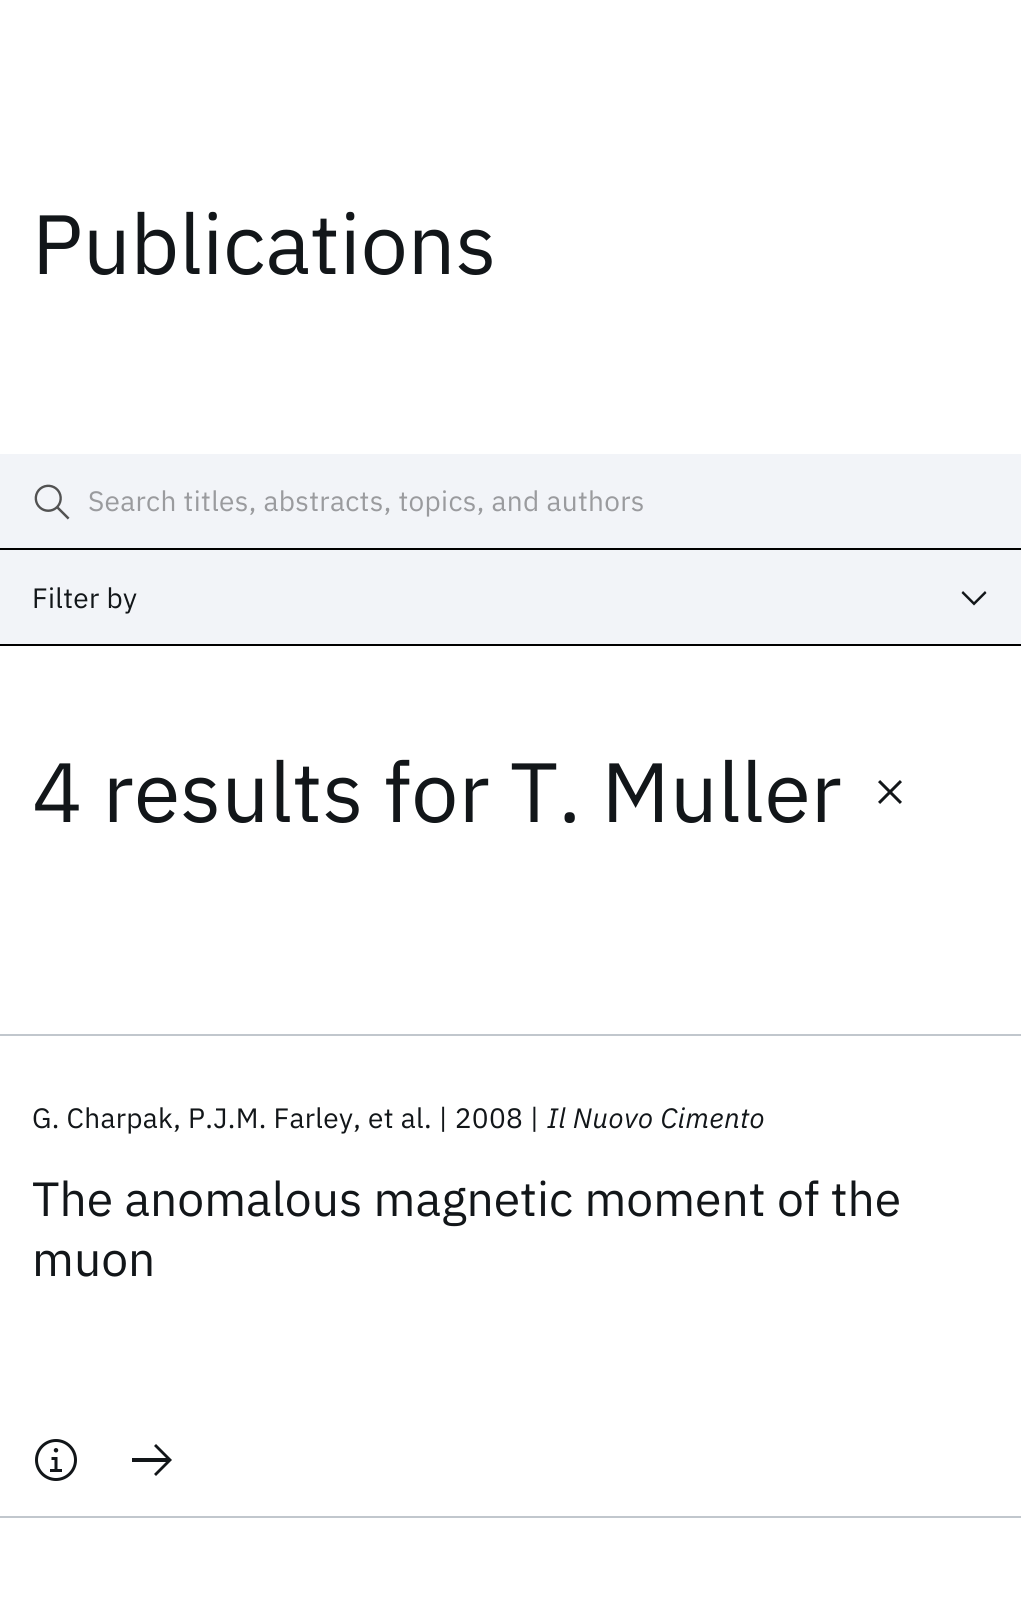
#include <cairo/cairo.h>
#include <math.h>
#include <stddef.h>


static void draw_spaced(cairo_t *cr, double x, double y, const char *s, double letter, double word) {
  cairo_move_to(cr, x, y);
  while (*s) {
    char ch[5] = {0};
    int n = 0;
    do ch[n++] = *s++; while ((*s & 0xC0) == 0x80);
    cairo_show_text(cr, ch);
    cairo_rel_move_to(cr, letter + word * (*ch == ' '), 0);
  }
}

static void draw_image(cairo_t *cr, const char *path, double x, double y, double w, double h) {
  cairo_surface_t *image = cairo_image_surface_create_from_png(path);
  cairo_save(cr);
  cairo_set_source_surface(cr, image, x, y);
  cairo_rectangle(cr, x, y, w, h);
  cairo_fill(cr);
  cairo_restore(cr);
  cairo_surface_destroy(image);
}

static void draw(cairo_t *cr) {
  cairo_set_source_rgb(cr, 1, 1, 1);
  cairo_paint(cr);
  cairo_set_source_rgb(cr, 242 / 255.0, 244 / 255.0, 248 / 255.0);
  cairo_rectangle(cr, 0, 454, 1021, 190);
  cairo_fill(cr);
  draw_image(cr, "images/1.png", 34, 484, 36, 36);
  cairo_set_source_rgb(cr, 0, 0, 0);
  cairo_rectangle(cr, 0, 548, 1021, 2);
  cairo_fill(cr);
  cairo_rectangle(cr, 0, 644, 1021, 2);
  cairo_fill(cr);
  cairo_set_source_rgb(cr, 18 / 255.0, 22 / 255.0, 25 / 255.0);
  cairo_new_path(cr);
  cairo_move_to(cr, 974, 605.5);
  cairo_line_to(cr, 961.5, 593);
  cairo_line_to(cr, 963, 591);
  cairo_line_to(cr, 974, 602);
  cairo_line_to(cr, 985, 591);
  cairo_line_to(cr, 986.5, 593);
  cairo_close_path(cr);
  cairo_fill(cr);
  draw_image(cr, "images/2.png", 878, 780, 24, 24);
  cairo_set_source_rgb(cr, 193 / 255.0, 199 / 255.0, 205 / 255.0);
  cairo_rectangle(cr, 0, 1034, 1021, 2);
  cairo_fill(cr);
  cairo_rectangle(cr, 0, 1516, 1021, 2);
  cairo_fill(cr);
  draw_image(cr, "images/3.png", 35, 1439, 42, 42);
  cairo_set_source_rgb(cr, 18 / 255.0, 22 / 255.0, 25 / 255.0);
  cairo_new_path(cr);
  cairo_move_to(cr, 156, 1444);
  cairo_line_to(cr, 154, 1446);
  cairo_line_to(cr, 166, 1458);
  cairo_line_to(cr, 132, 1458);
  cairo_line_to(cr, 132, 1462);
  cairo_line_to(cr, 166, 1462);
  cairo_line_to(cr, 154, 1474);
  cairo_line_to(cr, 156, 1476);
  cairo_line_to(cr, 172, 1460);
  cairo_close_path(cr);
  cairo_fill(cr);
  cairo_select_font_face(cr, "IBM Plex Sans", CAIRO_FONT_SLANT_NORMAL, CAIRO_FONT_WEIGHT_NORMAL);
  cairo_set_font_size(cr, 84);
  cairo_move_to(cr, 32, 274);
  cairo_show_text(cr, "Publications");
  cairo_set_font_size(cr, 28);
  cairo_set_source_rgb(cr, 154 / 255.0, 155 / 255.0, 158 / 255.0);
  draw_spaced(cr, 88, 511, "Search titles, abstracts, topics, and authors", 0.3, 0);
  cairo_set_source_rgb(cr, 18 / 255.0, 22 / 255.0, 25 / 255.0);
  draw_spaced(cr, 32, 608, "Filter by", 0.3, 0);
  cairo_set_font_size(cr, 84);
  draw_spaced(cr, 32, 822, "4 results for T. Muller", 0.3, 0);
  cairo_set_font_size(cr, 28);
  draw_spaced(cr, 32, 1128, "G. Charpak, P.J.M. Farley, et al. | 2008 |", 0.3, 0);
  cairo_select_font_face(cr, "IBM Plex Sans", CAIRO_FONT_SLANT_ITALIC, CAIRO_FONT_WEIGHT_NORMAL);
  draw_spaced(cr, 547, 1128, "Il Nuovo Cimento", 0.3, 0);
  cairo_select_font_face(cr, "IBM Plex Sans", CAIRO_FONT_SLANT_NORMAL, CAIRO_FONT_WEIGHT_NORMAL);
  cairo_set_font_size(cr, 48);
  cairo_move_to(cr, 32, 1216);
  cairo_show_text(cr, "The anomalous magnetic moment of the");
  cairo_move_to(cr, 32, 1276);
  cairo_show_text(cr, "muon");
}

int main(void) {
  cairo_surface_t *surface = cairo_image_surface_create(CAIRO_FORMAT_RGB24, 1021, 1601);
  cairo_t *cr = cairo_create(surface);
  cairo_font_options_t *options = cairo_font_options_create();
  cairo_font_options_set_hint_metrics(options, CAIRO_HINT_METRICS_OFF);
  cairo_font_options_set_hint_style(options, CAIRO_HINT_STYLE_NONE);
  cairo_set_font_options(cr, options);
  cairo_set_miter_limit(cr, 4);
  draw(cr);
  cairo_surface_write_to_png(surface, "out.png");
  cairo_font_options_destroy(options);
  cairo_destroy(cr);
  cairo_surface_destroy(surface);
  return 0;
}
